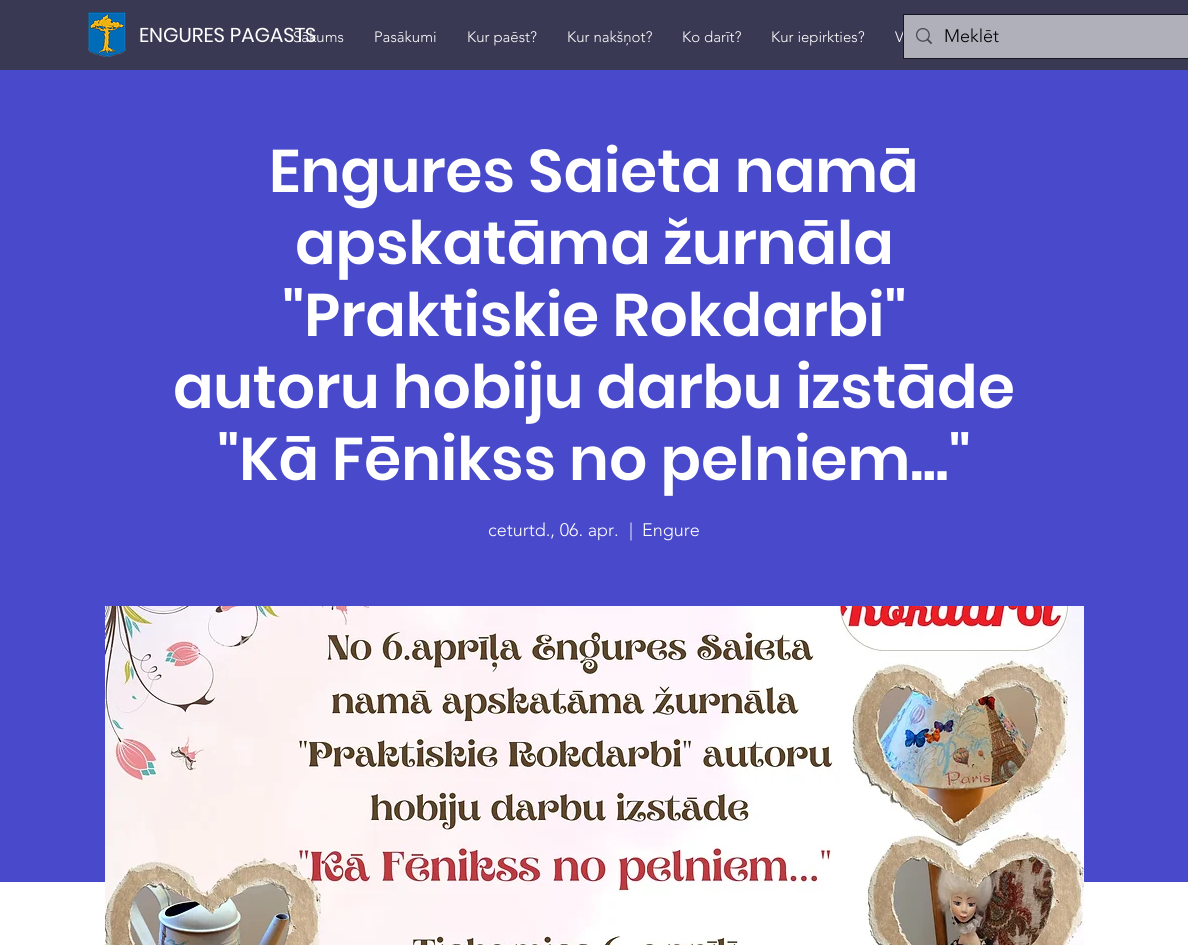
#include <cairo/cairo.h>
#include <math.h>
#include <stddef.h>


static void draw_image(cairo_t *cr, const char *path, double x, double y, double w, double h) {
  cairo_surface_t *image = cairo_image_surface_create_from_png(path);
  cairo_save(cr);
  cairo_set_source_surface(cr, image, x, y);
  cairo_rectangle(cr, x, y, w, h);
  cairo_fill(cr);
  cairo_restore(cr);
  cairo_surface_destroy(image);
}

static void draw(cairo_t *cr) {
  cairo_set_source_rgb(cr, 150 / 255.0, 150 / 255.0, 220 / 255.0);
  cairo_paint(cr);
  cairo_set_source_rgb(cr, 57 / 255.0, 57 / 255.0, 84 / 255.0);
  cairo_rectangle(cr, 0, 0, 903, 70);
  cairo_fill(cr);
  draw_image(cr, "images/1.png", 88, 12, 38, 45);
  cairo_set_source_rgb(cr, 73 / 255.0, 74 / 255.0, 203 / 255.0);
  cairo_rectangle(cr, 0, 70, 1188, 812);
  cairo_fill(cr);
  cairo_set_source_rgb(cr, 1, 1, 1);
  cairo_rectangle(cr, 0, 882, 1188, 63);
  cairo_fill(cr);
  draw_image(cr, "images/3.png", 105, 606, 979, 339);
  cairo_select_font_face(cr, "Poppins", CAIRO_FONT_SLANT_NORMAL, CAIRO_FONT_WEIGHT_NORMAL);
  cairo_set_font_size(cr, 20);
  cairo_move_to(cr, 139, 42);
  cairo_show_text(cr, "ENGURES PAGASTS");
  cairo_select_font_face(cr, "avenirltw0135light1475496 Light", CAIRO_FONT_SLANT_NORMAL, CAIRO_FONT_WEIGHT_NORMAL);
  cairo_set_font_size(cr, 15);
  cairo_move_to(cr, 293, 42);
  cairo_show_text(cr, "Sākums");
  cairo_move_to(cr, 374, 42);
  cairo_show_text(cr, "Pasākumi");
  cairo_move_to(cr, 467, 42);
  cairo_show_text(cr, "Kur paēst?");
  cairo_move_to(cr, 567, 42);
  cairo_show_text(cr, "Kur nakšņot?");
  cairo_move_to(cr, 682, 42);
  cairo_show_text(cr, "Ko darīt?");
  cairo_move_to(cr, 771, 42);
  cairo_show_text(cr, "Kur iepirkties?");
  cairo_move_to(cr, 895, 42);
  cairo_show_text(cr, "V");
  cairo_set_source_rgba(cr, 0, 0, 0, 0.62);
  cairo_rectangle(cr, 903, 0, 285, 70);
  cairo_fill(cr);
  cairo_rectangle(cr, 903.5, 14.5, 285, 44);
  cairo_set_source_rgba(cr, 0, 0, 0, 0.6);
  cairo_set_line_width(cr, 1);
  cairo_stroke(cr);
  cairo_set_source_rgba(cr, 1, 1, 1, 0.6);
  cairo_rectangle(cr, 904, 15, 284, 43);
  cairo_fill(cr);
  draw_image(cr, "images/2.png", 916, 28, 16, 17);
  cairo_set_font_size(cr, 18);
  cairo_set_source_rgb(cr, 0, 0, 0);
  cairo_move_to(cr, 944, 42);
  cairo_show_text(cr, "Meklēt");
  cairo_select_font_face(cr, "Poppins SemiBold", CAIRO_FONT_SLANT_NORMAL, CAIRO_FONT_WEIGHT_NORMAL);
  cairo_set_font_size(cr, 60);
  cairo_set_source_rgb(cr, 1, 1, 1);
  cairo_move_to(cr, 269, 192);
  cairo_show_text(cr, "Engures Saieta namā");
  cairo_move_to(cr, 295, 264);
  cairo_show_text(cr, "apskatāma žurnāla");
  cairo_move_to(cr, 282, 336);
  cairo_show_text(cr, "\"Praktiskie Rokdarbi\"");
  cairo_move_to(cr, 173, 408);
  cairo_show_text(cr, "autoru hobiju darbu izstāde");
  cairo_move_to(cr, 217, 480);
  cairo_show_text(cr, "\"Kā Fēnikss no pelniem...\"");
  cairo_select_font_face(cr, "avenirltw0135light1475496 Light", CAIRO_FONT_SLANT_NORMAL, CAIRO_FONT_WEIGHT_NORMAL);
  cairo_set_font_size(cr, 18);
  cairo_move_to(cr, 488, 536);
  cairo_show_text(cr, "ceturtd., 06. apr.");
  cairo_move_to(cr, 629, 536);
  cairo_show_text(cr, "|");
  cairo_move_to(cr, 642, 536);
  cairo_show_text(cr, "Engure");
}

int main(void) {
  cairo_surface_t *surface = cairo_image_surface_create(CAIRO_FORMAT_RGB24, 1188, 945);
  cairo_t *cr = cairo_create(surface);
  cairo_font_options_t *options = cairo_font_options_create();
  cairo_font_options_set_hint_metrics(options, CAIRO_HINT_METRICS_OFF);
  cairo_font_options_set_hint_style(options, CAIRO_HINT_STYLE_NONE);
  cairo_set_font_options(cr, options);
  cairo_set_miter_limit(cr, 4);
  draw(cr);
  cairo_surface_write_to_png(surface, "out.png");
  cairo_font_options_destroy(options);
  cairo_destroy(cr);
  cairo_surface_destroy(surface);
  return 0;
}
